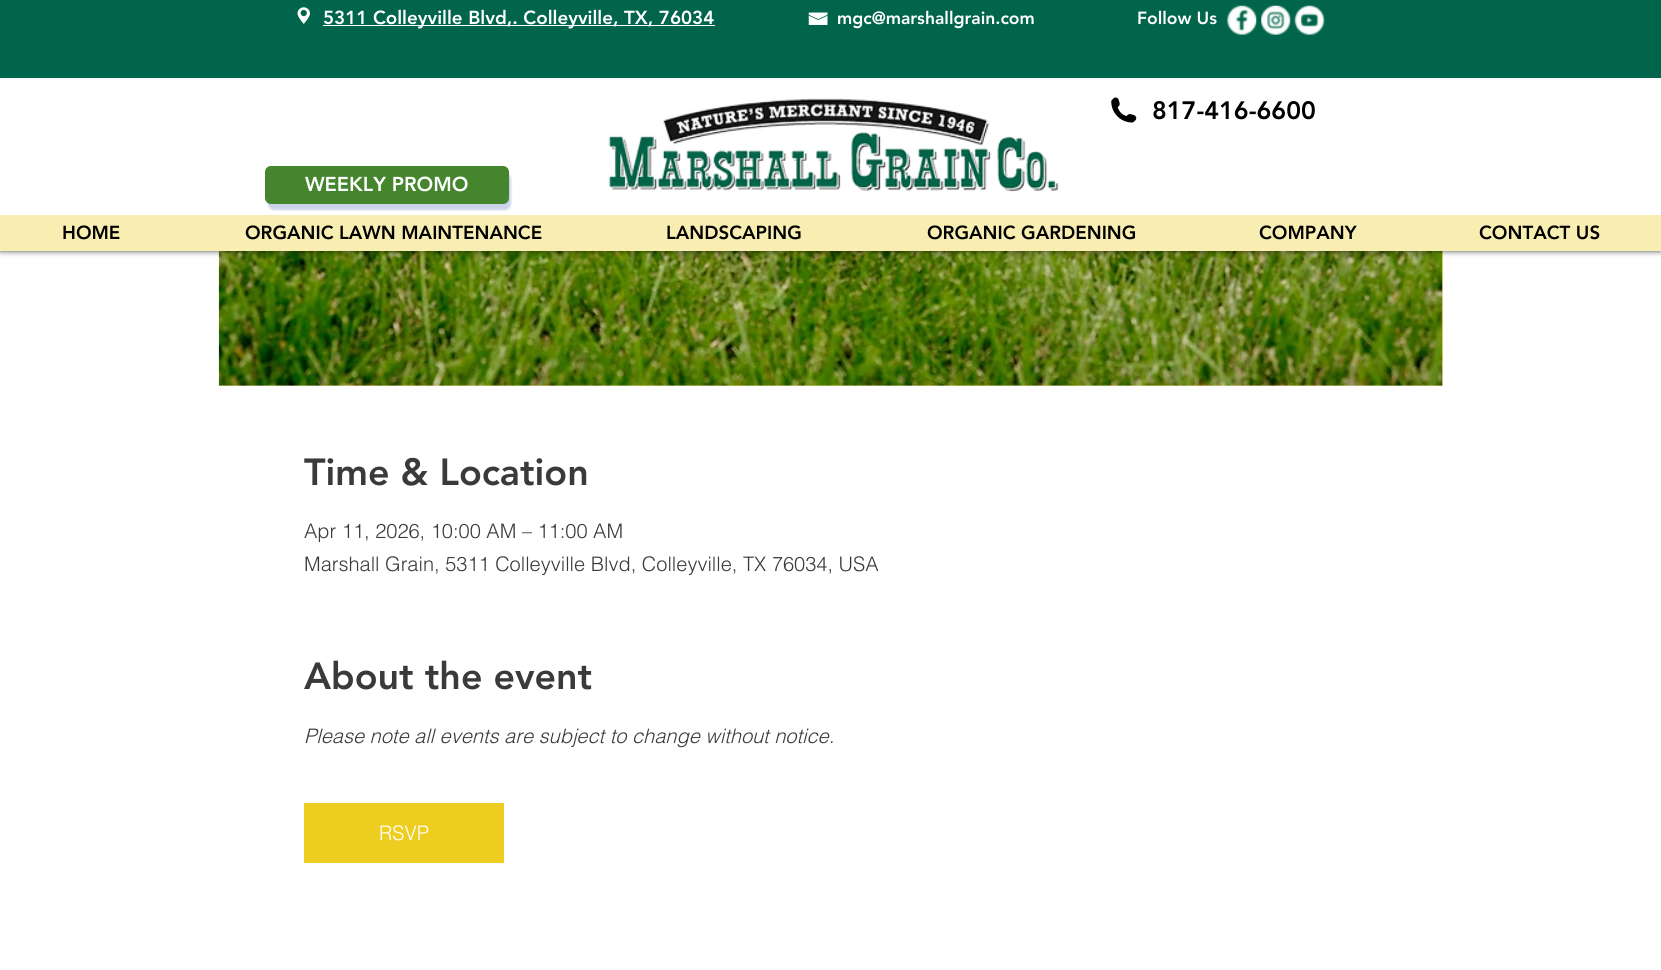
#include <cairo/cairo.h>
#include <math.h>
#include <stddef.h>


static void rounded_rect(cairo_t *cr, double x, double y, double w, double h, double r) {
  cairo_new_sub_path(cr);
  cairo_arc(cr, x + w - r, y + h - r, r, 0, M_PI / 2);
  cairo_arc(cr, x + r, y + h - r, r, M_PI / 2, M_PI);
  cairo_arc(cr, x + r, y + r, r, M_PI, 1.5 * M_PI);
  cairo_arc(cr, x + w - r, y + r, r, 1.5 * M_PI, 2 * M_PI);
  cairo_close_path(cr);
}

static void draw_shadow(cairo_t *cr, double x, double y, double w, double h, double r, double blur, double alpha) {
  cairo_push_group_with_content(cr, CAIRO_CONTENT_ALPHA);
  cairo_set_operator(cr, CAIRO_OPERATOR_SOURCE);
  for (int i = 15; i >= -15 && fmin(w, h) + blur * i / 3 > 0; i -= 2) {
    double e = blur * i / 6;
    cairo_set_source_rgba(cr, 0, 0, 0, alpha * erfc((i - 1) / 8.5) / 2);
    rounded_rect(cr, x - e, y - e, w + 2 * e, h + 2 * e, fmax(0, fmin(r + e + blur * .6, fmin(w, h) / 2 + e)));
    cairo_fill(cr);
  }
  cairo_pattern_t *soft = cairo_pop_group(cr);
  cairo_mask(cr, soft);
  cairo_pattern_destroy(soft);
}

static void draw_image(cairo_t *cr, const char *path, double x, double y, double w, double h) {
  cairo_surface_t *image = cairo_image_surface_create_from_png(path);
  cairo_save(cr);
  cairo_set_source_surface(cr, image, x, y);
  cairo_rectangle(cr, x, y, w, h);
  cairo_fill(cr);
  cairo_restore(cr);
  cairo_surface_destroy(image);
}

static void draw(cairo_t *cr) {
  cairo_set_source_rgb(cr, 1, 1, 1);
  cairo_paint(cr);
  cairo_set_source_rgb(cr, 243 / 255.0, 227 / 255.0, 137 / 255.0);
  cairo_rectangle(cr, 219, 251, 1224, 135);
  cairo_fill(cr);
  draw_image(cr, "images/8.png", 218, 251, 1225, 135);
  cairo_set_source_rgb(cr, 0, 0, 0);
  draw_shadow(cr, 0, 0, 1661, 251, 0, 3, 0.7);
  cairo_set_source_rgb(cr, 1, 1, 1);
  cairo_rectangle(cr, 0, 78, 1661, 137);
  cairo_fill(cr);
  cairo_set_source_rgb(cr, 0, 101 / 255.0, 74 / 255.0);
  cairo_rectangle(cr, 0, 0, 1661, 78);
  cairo_fill(cr);
  draw_image(cr, "images/1.png", 297, 7, 13, 17);
  cairo_set_source_rgb(cr, 1, 1, 1);
  cairo_rectangle(cr, 323, 25, 392, 1);
  cairo_fill(cr);
  draw_image(cr, "images/2.png", 808, 12, 20, 13);
  draw_image(cr, "images/3.png", 1227, 5, 30, 30);
  draw_image(cr, "images/4.png", 1261, 5, 30, 30);
  draw_image(cr, "images/5.png", 1294, 5, 31, 30);
  draw_image(cr, "images/6.png", 608, 98, 451, 94);
  draw_image(cr, "images/7.png", 1111, 97, 26, 26);
  cairo_set_source_rgb(cr, 86 / 255.0, 111 / 255.0, 184 / 255.0);
  draw_shadow(cr, 268, 173, 243, 37, 6, 1, 0.31);
  cairo_set_source_rgb(cr, 69 / 255.0, 133 / 255.0, 46 / 255.0);
  rounded_rect(cr, 265, 166, 244, 38, 6);
  cairo_fill(cr);
  cairo_set_source_rgb(cr, 249 / 255.0, 238 / 255.0, 177 / 255.0);
  cairo_rectangle(cr, 0, 215, 1661, 36);
  cairo_fill(cr);
  cairo_set_source_rgb(cr, 237 / 255.0, 205 / 255.0, 31 / 255.0);
  cairo_rectangle(cr, 304, 803, 200, 60);
  cairo_fill(cr);
  cairo_select_font_face(cr, "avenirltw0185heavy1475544 Black", CAIRO_FONT_SLANT_NORMAL, CAIRO_FONT_WEIGHT_NORMAL);
  cairo_set_font_size(cr, 18.75);
  cairo_set_source_rgb(cr, 1, 1, 1);
  cairo_move_to(cr, 323, 24);
  cairo_show_text(cr, "5311 Colleyville Blvd,. Colleyville, TX, 76034");
  cairo_set_font_size(cr, 17.5);
  cairo_move_to(cr, 837, 24);
  cairo_show_text(cr, "mgc@marshallgrain.com");
  cairo_move_to(cr, 1137, 24);
  cairo_show_text(cr, "Follow Us");
  cairo_set_font_size(cr, 25);
  cairo_set_source_rgb(cr, 0, 0, 0);
  cairo_move_to(cr, 1152, 119);
  cairo_show_text(cr, "817-416-6600");
  cairo_set_font_size(cr, 20);
  cairo_set_source_rgb(cr, 1, 1, 1);
  cairo_move_to(cr, 305, 191);
  cairo_show_text(cr, "WEEKLY PROMO");
  cairo_set_font_size(cr, 18.75);
  cairo_set_source_rgb(cr, 0, 0, 0);
  cairo_move_to(cr, 62, 239);
  cairo_show_text(cr, "HOME");
  cairo_move_to(cr, 245, 239);
  cairo_show_text(cr, "ORGANIC LAWN MAINTENANCE");
  cairo_move_to(cr, 666, 239);
  cairo_show_text(cr, "LANDSCAPING");
  cairo_move_to(cr, 927, 239);
  cairo_show_text(cr, "ORGANIC GARDENING");
  cairo_move_to(cr, 1259, 239);
  cairo_show_text(cr, "COMPANY");
  cairo_move_to(cr, 1479, 239);
  cairo_show_text(cr, "CONTACT US");
  cairo_set_font_size(cr, 37.5);
  cairo_set_source_rgb(cr, 59 / 255.0, 58 / 255.0, 58 / 255.0);
  cairo_move_to(cr, 304, 485);
  cairo_show_text(cr, "Time & Location");
  cairo_select_font_face(cr, "helvetica Light", CAIRO_FONT_SLANT_NORMAL, CAIRO_FONT_WEIGHT_NORMAL);
  cairo_set_font_size(cr, 20);
  cairo_move_to(cr, 304, 538);
  cairo_show_text(cr, "Apr 11, 2026, 10:00 AM – 11:00 AM");
  cairo_move_to(cr, 304, 571);
  cairo_show_text(cr, "Marshall Grain, 5311 Colleyville Blvd, Colleyville, TX 76034, USA");
  cairo_select_font_face(cr, "avenirltw0185heavy1475544 Black", CAIRO_FONT_SLANT_NORMAL, CAIRO_FONT_WEIGHT_NORMAL);
  cairo_set_font_size(cr, 37.5);
  cairo_move_to(cr, 304, 689);
  cairo_show_text(cr, "About the event");
  cairo_select_font_face(cr, "helvetica Light", CAIRO_FONT_SLANT_ITALIC, CAIRO_FONT_WEIGHT_NORMAL);
  cairo_set_font_size(cr, 20);
  cairo_move_to(cr, 304, 743);
  cairo_show_text(cr, "Please note all events are subject to change without notice.");
  cairo_select_font_face(cr, "helvetica Light", CAIRO_FONT_SLANT_NORMAL, CAIRO_FONT_WEIGHT_NORMAL);
  cairo_set_source_rgb(cr, 1, 1, 1);
  cairo_move_to(cr, 379, 840);
  cairo_show_text(cr, "RSVP");
}

int main(void) {
  cairo_surface_t *surface = cairo_image_surface_create(CAIRO_FORMAT_RGB24, 1661, 970);
  cairo_t *cr = cairo_create(surface);
  cairo_font_options_t *options = cairo_font_options_create();
  cairo_font_options_set_hint_metrics(options, CAIRO_HINT_METRICS_OFF);
  cairo_font_options_set_hint_style(options, CAIRO_HINT_STYLE_NONE);
  cairo_set_font_options(cr, options);
  cairo_set_miter_limit(cr, 4);
  draw(cr);
  cairo_surface_write_to_png(surface, "out.png");
  cairo_font_options_destroy(options);
  cairo_destroy(cr);
  cairo_surface_destroy(surface);
  return 0;
}
